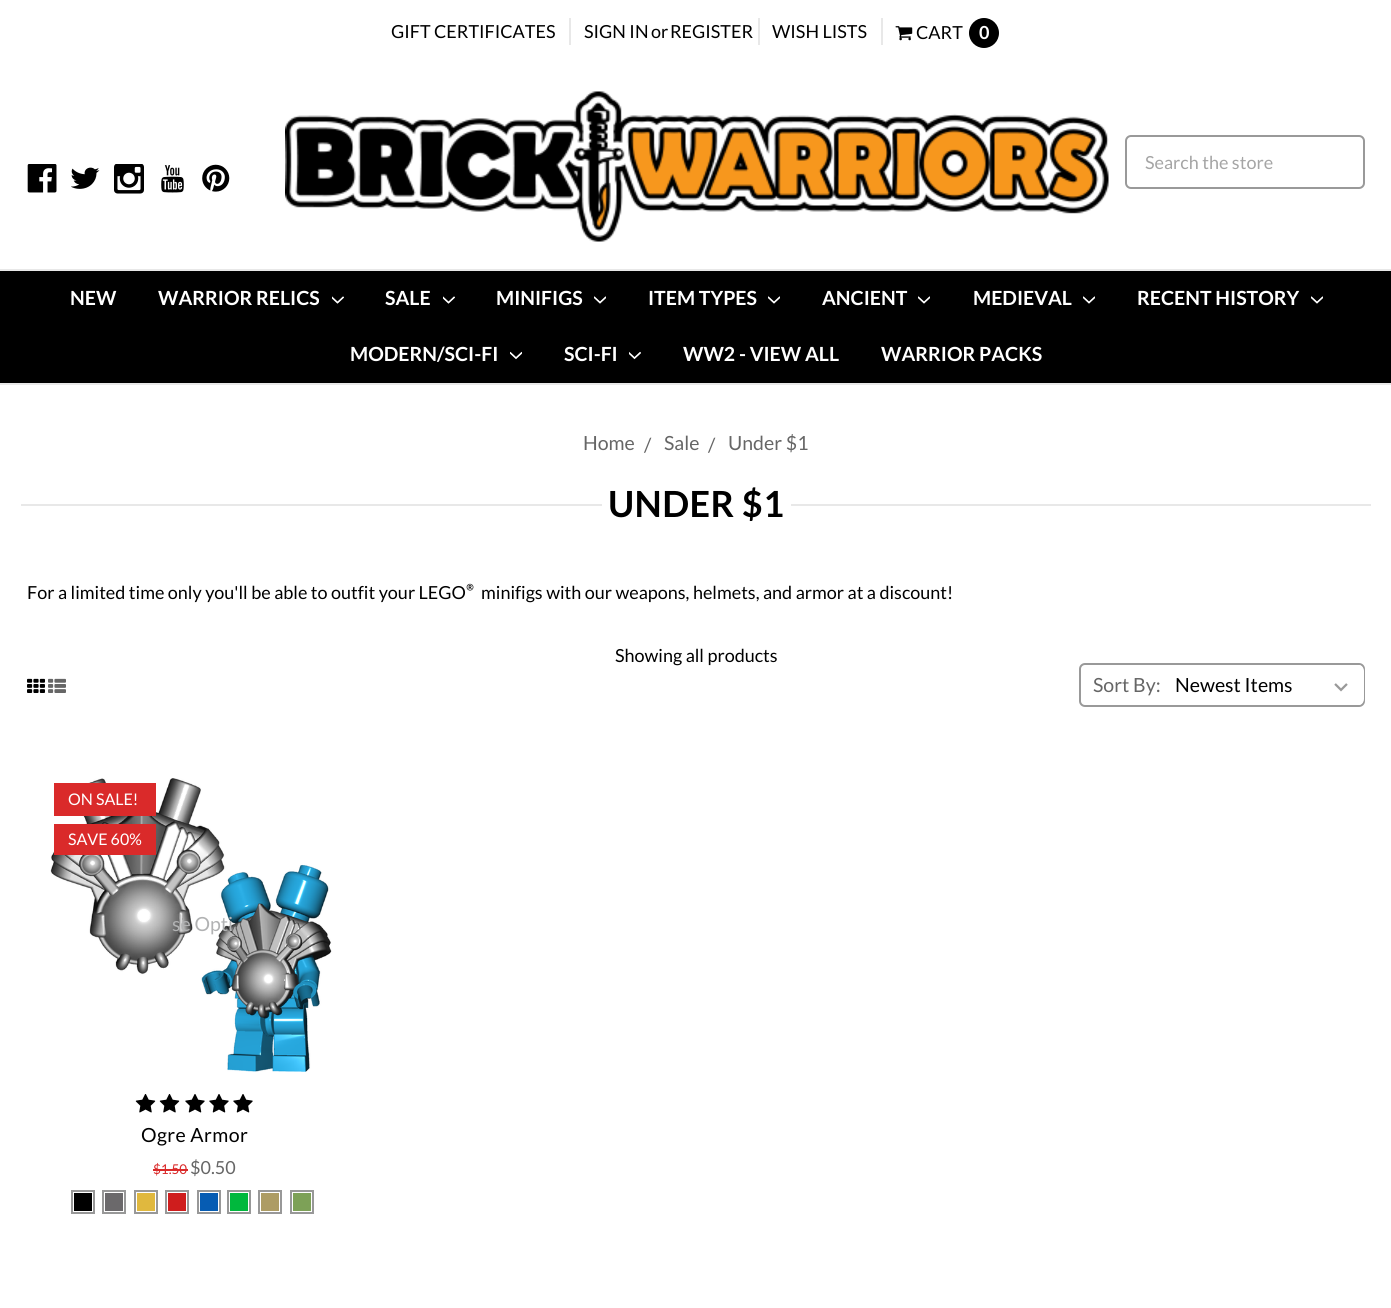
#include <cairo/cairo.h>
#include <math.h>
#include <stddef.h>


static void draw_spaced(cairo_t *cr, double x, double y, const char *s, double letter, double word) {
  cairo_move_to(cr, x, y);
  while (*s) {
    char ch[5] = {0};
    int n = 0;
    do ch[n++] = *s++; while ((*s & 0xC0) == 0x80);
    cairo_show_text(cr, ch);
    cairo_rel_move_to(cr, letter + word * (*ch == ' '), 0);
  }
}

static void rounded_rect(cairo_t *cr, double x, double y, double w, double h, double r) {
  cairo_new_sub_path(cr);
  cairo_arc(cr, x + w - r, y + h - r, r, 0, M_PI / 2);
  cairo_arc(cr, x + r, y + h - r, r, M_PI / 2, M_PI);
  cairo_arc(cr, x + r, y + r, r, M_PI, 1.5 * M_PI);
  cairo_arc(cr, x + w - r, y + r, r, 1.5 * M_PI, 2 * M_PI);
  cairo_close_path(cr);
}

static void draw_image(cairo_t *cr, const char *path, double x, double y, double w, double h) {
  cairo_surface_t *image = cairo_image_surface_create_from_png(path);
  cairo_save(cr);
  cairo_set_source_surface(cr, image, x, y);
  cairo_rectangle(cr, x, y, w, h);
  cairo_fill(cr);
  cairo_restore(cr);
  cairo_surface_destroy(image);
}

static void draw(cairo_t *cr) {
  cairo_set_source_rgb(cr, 1, 1, 1);
  cairo_paint(cr);
  cairo_set_source_rgb(cr, 232 / 255.0, 232 / 255.0, 232 / 255.0);
  cairo_rectangle(cr, 0, 383, 1391, 2);
  cairo_fill(cr);
  cairo_rectangle(cr, 569, 18, 2, 27);
  cairo_fill(cr);
  cairo_rectangle(cr, 758, 18, 2, 27);
  cairo_fill(cr);
  cairo_rectangle(cr, 881, 18, 2, 27);
  cairo_fill(cr);
  draw_image(cr, "images/1.png", 895, 26, 18, 15);
  cairo_set_source_rgb(cr, 0, 0, 0);
  cairo_arc(cr, 984, 33, 15, 0, 2 * M_PI);
  cairo_fill(cr);
  draw_image(cr, "images/2.png", 285, 91, 824, 151);
  rounded_rect(cr, 1126, 136, 238, 52, 5);
  cairo_set_source_rgb(cr, 153 / 255.0, 153 / 255.0, 153 / 255.0);
  cairo_stroke(cr);
  draw_image(cr, "images/3.png", 27, 164, 30, 29);
  draw_image(cr, "images/4.png", 71, 167, 29, 22);
  draw_image(cr, "images/5.png", 114, 164, 30, 30);
  draw_image(cr, "images/6.png", 161, 165, 23, 28);
  draw_image(cr, "images/7.png", 202, 164, 28, 28);
  cairo_set_source_rgb(cr, 0, 0, 0);
  cairo_rectangle(cr, 0, 271, 1391, 112);
  cairo_fill(cr);
  cairo_set_source_rgb(cr, 232 / 255.0, 232 / 255.0, 232 / 255.0);
  cairo_rectangle(cr, 0, 269, 1391, 2);
  cairo_fill(cr);
  draw_image(cr, "images/8.png", 332, 296, 12, 8);
  draw_image(cr, "images/8.png", 443, 296, 12, 8);
  draw_image(cr, "images/9.png", 594, 296, 12, 8);
  draw_image(cr, "images/9.png", 768, 296, 12, 8);
  draw_image(cr, "images/9.png", 918, 296, 12, 8);
  draw_image(cr, "images/9.png", 1083, 296, 12, 8);
  draw_image(cr, "images/9.png", 1311, 296, 12, 8);
  draw_image(cr, "images/10.png", 510, 351, 12, 9);
  draw_image(cr, "images/11.png", 629, 351, 12, 9);
  cairo_rectangle(cr, 21, 504, 581, 2);
  cairo_fill(cr);
  cairo_rectangle(cr, 791, 504, 580, 2);
  cairo_fill(cr);
  draw_image(cr, "images/12.png", 27, 678, 18, 15);
  draw_image(cr, "images/13.png", 48, 678, 18, 15);
  rounded_rect(cr, 1080, 664, 284, 42, 5);
  cairo_set_source_rgb(cr, 153 / 255.0, 153 / 255.0, 153 / 255.0);
  cairo_stroke(cr);
  cairo_save(cr);
  rounded_rect(cr, 1080, 665, 284, 40, 5);
  cairo_clip(cr);
  cairo_set_source_rgb(cr, 1, 1, 1);
  rounded_rect(cr, 1172, 665, 192, 40, 6);
  cairo_fill(cr);
  cairo_restore(cr);
  draw_image(cr, "images/14.png", 1334, 683, 14, 9);
  draw_image(cr, "images/15.png", 50, 778, 282, 294);
  cairo_set_source_rgb(cr, 218 / 255.0, 42 / 255.0, 42 / 255.0);
  cairo_rectangle(cr, 54, 783, 102, 33);
  cairo_fill(cr);
  cairo_rectangle(cr, 54, 824, 102, 31);
  cairo_fill(cr);
  draw_image(cr, "images/16.png", 135, 1094, 21, 19);
  draw_image(cr, "images/16.png", 159, 1094, 21, 19);
  draw_image(cr, "images/17.png", 185, 1094, 20, 19);
  draw_image(cr, "images/17.png", 209, 1094, 20, 19);
  draw_image(cr, "images/17.png", 233, 1094, 20, 19);
  cairo_rectangle(cr, 153, 1169, 35, 2);
  cairo_fill(cr);
  cairo_rectangle(cr, 72, 1191, 22, 22);
  cairo_set_source_rgb(cr, 152 / 255.0, 152 / 255.0, 152 / 255.0);
  cairo_stroke(cr);
  cairo_set_source_rgb(cr, 0, 0, 0);
  cairo_rectangle(cr, 74, 1193, 18, 18);
  cairo_fill(cr);
  cairo_rectangle(cr, 103, 1191, 22, 22);
  cairo_set_source_rgb(cr, 152 / 255.0, 152 / 255.0, 152 / 255.0);
  cairo_stroke(cr);
  cairo_set_source_rgb(cr, 107 / 255.0, 105 / 255.0, 107 / 255.0);
  cairo_rectangle(cr, 105, 1193, 18, 18);
  cairo_fill(cr);
  cairo_rectangle(cr, 135, 1191, 22, 22);
  cairo_set_source_rgb(cr, 152 / 255.0, 152 / 255.0, 152 / 255.0);
  cairo_stroke(cr);
  cairo_set_source_rgb(cr, 224 / 255.0, 184 / 255.0, 62 / 255.0);
  cairo_rectangle(cr, 137, 1193, 18, 18);
  cairo_fill(cr);
  cairo_rectangle(cr, 166, 1191, 22, 22);
  cairo_set_source_rgb(cr, 152 / 255.0, 152 / 255.0, 152 / 255.0);
  cairo_stroke(cr);
  cairo_set_source_rgb(cr, 207 / 255.0, 29 / 255.0, 29 / 255.0);
  cairo_rectangle(cr, 168, 1193, 18, 18);
  cairo_fill(cr);
  cairo_rectangle(cr, 198, 1191, 22, 22);
  cairo_set_source_rgb(cr, 152 / 255.0, 152 / 255.0, 152 / 255.0);
  cairo_stroke(cr);
  cairo_set_source_rgb(cr, 6 / 255.0, 92 / 255.0, 179 / 255.0);
  cairo_rectangle(cr, 200, 1193, 18, 18);
  cairo_fill(cr);
  cairo_rectangle(cr, 228, 1191, 22, 22);
  cairo_set_source_rgb(cr, 152 / 255.0, 152 / 255.0, 152 / 255.0);
  cairo_stroke(cr);
  cairo_set_source_rgb(cr, 0, 184 / 255.0, 61 / 255.0);
  cairo_rectangle(cr, 230, 1193, 18, 18);
  cairo_fill(cr);
  cairo_rectangle(cr, 259, 1191, 22, 22);
  cairo_set_source_rgb(cr, 152 / 255.0, 152 / 255.0, 152 / 255.0);
  cairo_stroke(cr);
  cairo_set_source_rgb(cr, 173 / 255.0, 156 / 255.0, 100 / 255.0);
  cairo_rectangle(cr, 261, 1193, 18, 18);
  cairo_fill(cr);
  cairo_rectangle(cr, 291, 1191, 22, 22);
  cairo_set_source_rgb(cr, 152 / 255.0, 152 / 255.0, 152 / 255.0);
  cairo_stroke(cr);
  cairo_set_source_rgb(cr, 125 / 255.0, 161 / 255.0, 87 / 255.0);
  cairo_rectangle(cr, 293, 1193, 18, 18);
  cairo_fill(cr);
  cairo_select_font_face(cr, "Lato", CAIRO_FONT_SLANT_NORMAL, CAIRO_FONT_WEIGHT_NORMAL);
  cairo_set_font_size(cr, 18);
  cairo_set_source_rgb(cr, 0, 0, 0);
  cairo_move_to(cr, 391, 38);
  cairo_show_text(cr, "GIFT CERTIFICATES");
  cairo_move_to(cr, 584, 38);
  cairo_show_text(cr, "SIGN IN");
  cairo_move_to(cr, 651, 38);
  cairo_show_text(cr, "or");
  cairo_move_to(cr, 670, 38);
  cairo_show_text(cr, "REGISTER");
  cairo_move_to(cr, 772, 38);
  cairo_show_text(cr, "WISH LISTS");
  cairo_move_to(cr, 916, 39);
  cairo_show_text(cr, "CART");
  cairo_select_font_face(cr, "Lato", CAIRO_FONT_SLANT_NORMAL, CAIRO_FONT_WEIGHT_BOLD);
  cairo_set_source_rgb(cr, 1, 1, 1);
  cairo_move_to(cr, 979, 39);
  cairo_show_text(cr, "0");
  cairo_select_font_face(cr, "Lato", CAIRO_FONT_SLANT_NORMAL, CAIRO_FONT_WEIGHT_NORMAL);
  cairo_set_source_rgb(cr, 165 / 255.0, 165 / 255.0, 165 / 255.0);
  cairo_move_to(cr, 1145, 169);
  cairo_show_text(cr, "Search the store");
  cairo_select_font_face(cr, "Lato", CAIRO_FONT_SLANT_NORMAL, CAIRO_FONT_WEIGHT_BOLD);
  cairo_set_font_size(cr, 19.5);
  cairo_set_source_rgb(cr, 1, 1, 1);
  cairo_move_to(cr, 70, 305);
  cairo_show_text(cr, "NEW");
  cairo_move_to(cr, 158, 305);
  cairo_show_text(cr, "WARRIOR RELICS");
  cairo_move_to(cr, 385, 305);
  cairo_show_text(cr, "SALE");
  cairo_move_to(cr, 496, 305);
  cairo_show_text(cr, "MINIFIGS");
  cairo_move_to(cr, 648, 305);
  cairo_show_text(cr, "ITEM TYPES");
  cairo_move_to(cr, 822, 305);
  cairo_show_text(cr, "ANCIENT");
  cairo_move_to(cr, 973, 305);
  cairo_show_text(cr, "MEDIEVAL");
  cairo_move_to(cr, 1137, 305);
  cairo_show_text(cr, "RECENT HISTORY");
  cairo_move_to(cr, 350, 361);
  cairo_show_text(cr, "MODERN/SCI-FI");
  cairo_move_to(cr, 564, 361);
  cairo_show_text(cr, "SCI-FI");
  cairo_move_to(cr, 683, 361);
  cairo_show_text(cr, "WW2 - VIEW ALL");
  cairo_move_to(cr, 881, 361);
  cairo_show_text(cr, "WARRIOR PACKS");
  cairo_select_font_face(cr, "Lato", CAIRO_FONT_SLANT_NORMAL, CAIRO_FONT_WEIGHT_NORMAL);
  cairo_set_source_rgb(cr, 102 / 255.0, 102 / 255.0, 102 / 255.0);
  cairo_move_to(cr, 583, 450);
  cairo_show_text(cr, "Home");
  cairo_move_to(cr, 644, 452);
  cairo_show_text(cr, "/");
  cairo_move_to(cr, 664, 450);
  cairo_show_text(cr, "Sale");
  cairo_move_to(cr, 708, 452);
  cairo_show_text(cr, "/");
  cairo_move_to(cr, 728, 450);
  cairo_show_text(cr, "Under $1");
  cairo_select_font_face(cr, "Lato", CAIRO_FONT_SLANT_NORMAL, CAIRO_FONT_WEIGHT_BOLD);
  cairo_set_font_size(cr, 36);
  cairo_set_source_rgb(cr, 0, 0, 0);
  draw_spaced(cr, 608, 517, "UNDER $1", 0.4, 0);
  cairo_select_font_face(cr, "Lato", CAIRO_FONT_SLANT_NORMAL, CAIRO_FONT_WEIGHT_NORMAL);
  cairo_set_font_size(cr, 18);
  cairo_move_to(cr, 27, 599);
  cairo_show_text(cr, "For a limited time only you'll be able to outfit your LEGO");
  cairo_select_font_face(cr, "Carlito", CAIRO_FONT_SLANT_NORMAL, CAIRO_FONT_WEIGHT_NORMAL);
  cairo_set_font_size(cr, 22);
  cairo_move_to(cr, 466, 599);
  cairo_show_text(cr, "®");
  cairo_select_font_face(cr, "Lato", CAIRO_FONT_SLANT_NORMAL, CAIRO_FONT_WEIGHT_NORMAL);
  cairo_set_font_size(cr, 18);
  cairo_move_to(cr, 481, 599);
  cairo_show_text(cr, "minifigs with our weapons, helmets, and armor at a discount!");
  cairo_move_to(cr, 615, 662);
  cairo_show_text(cr, "Showing all products");
  cairo_set_font_size(cr, 19.5);
  cairo_set_source_rgb(cr, 102 / 255.0, 102 / 255.0, 102 / 255.0);
  cairo_move_to(cr, 1093, 692);
  cairo_show_text(cr, "Sort By:");
  cairo_set_source_rgb(cr, 0, 0, 0);
  cairo_move_to(cr, 1175, 692);
  cairo_show_text(cr, "Newest Items");
  cairo_set_font_size(cr, 16);
  cairo_set_source_rgb(cr, 1, 1, 1);
  cairo_move_to(cr, 68, 805);
  cairo_show_text(cr, "ON SALE!");
  cairo_move_to(cr, 68, 845);
  cairo_show_text(cr, "SAVE 60%");
  cairo_set_font_size(cr, 19.5);
  cairo_set_source_rgb(cr, 177 / 255.0, 178 / 255.0, 179 / 255.0);
  cairo_move_to(cr, 172, 931);
  cairo_show_text(cr, "se Opti");
  cairo_set_source_rgb(cr, 0, 0, 0);
  draw_spaced(cr, 141, 1142, "Ogre Armor", 0.4, 0);
  cairo_set_font_size(cr, 13.5);
  cairo_set_source_rgb(cr, 218 / 255.0, 42 / 255.0, 42 / 255.0);
  cairo_move_to(cr, 153, 1174);
  cairo_show_text(cr, "$1.50");
  cairo_set_font_size(cr, 18);
  cairo_set_source_rgb(cr, 102 / 255.0, 102 / 255.0, 102 / 255.0);
  cairo_move_to(cr, 190, 1174);
  cairo_show_text(cr, "$0.50");
}

int main(void) {
  cairo_surface_t *surface = cairo_image_surface_create(CAIRO_FORMAT_RGB24, 1391, 1308);
  cairo_t *cr = cairo_create(surface);
  cairo_font_options_t *options = cairo_font_options_create();
  cairo_font_options_set_hint_metrics(options, CAIRO_HINT_METRICS_OFF);
  cairo_font_options_set_hint_style(options, CAIRO_HINT_STYLE_NONE);
  cairo_set_font_options(cr, options);
  cairo_set_miter_limit(cr, 4);
  draw(cr);
  cairo_surface_write_to_png(surface, "out.png");
  cairo_font_options_destroy(options);
  cairo_destroy(cr);
  cairo_surface_destroy(surface);
  return 0;
}
